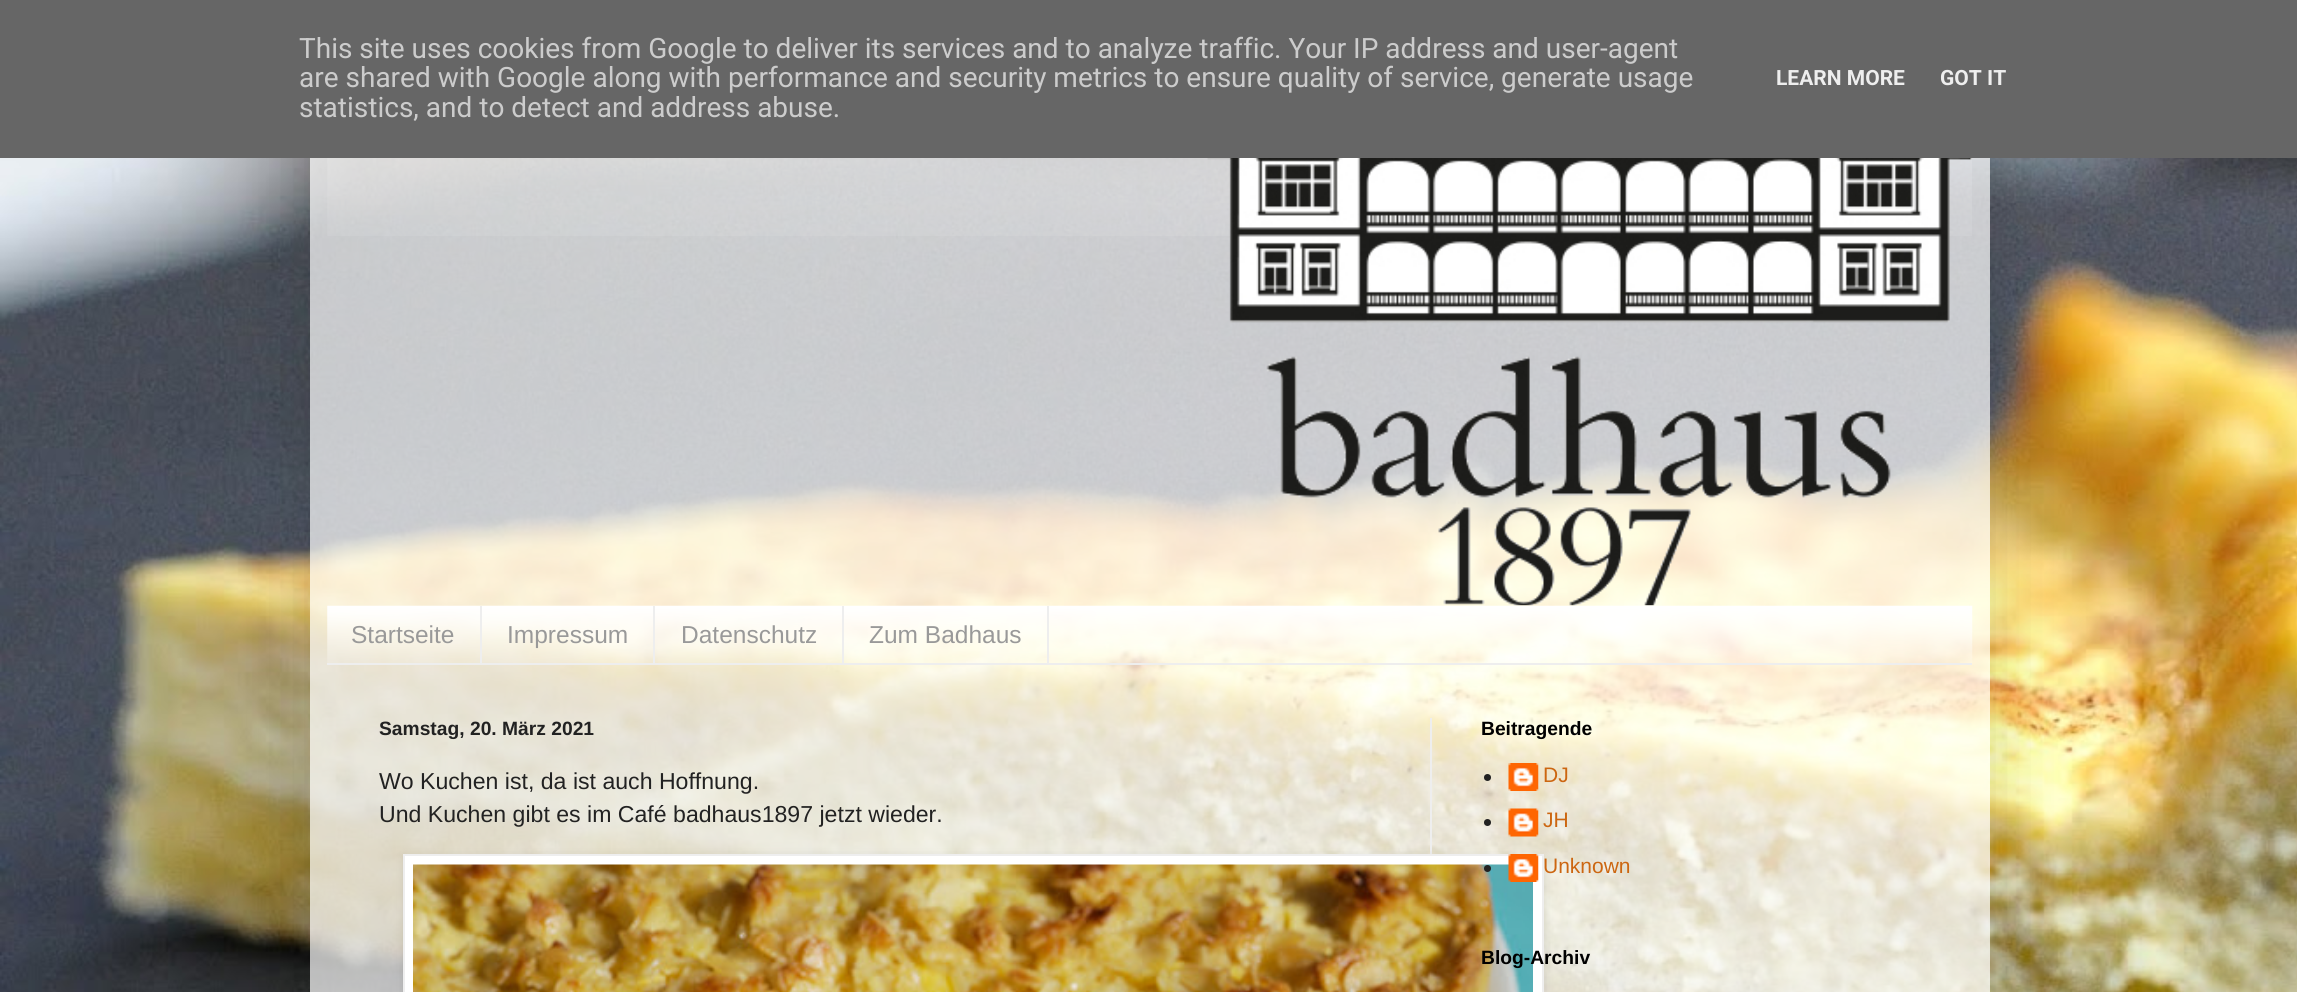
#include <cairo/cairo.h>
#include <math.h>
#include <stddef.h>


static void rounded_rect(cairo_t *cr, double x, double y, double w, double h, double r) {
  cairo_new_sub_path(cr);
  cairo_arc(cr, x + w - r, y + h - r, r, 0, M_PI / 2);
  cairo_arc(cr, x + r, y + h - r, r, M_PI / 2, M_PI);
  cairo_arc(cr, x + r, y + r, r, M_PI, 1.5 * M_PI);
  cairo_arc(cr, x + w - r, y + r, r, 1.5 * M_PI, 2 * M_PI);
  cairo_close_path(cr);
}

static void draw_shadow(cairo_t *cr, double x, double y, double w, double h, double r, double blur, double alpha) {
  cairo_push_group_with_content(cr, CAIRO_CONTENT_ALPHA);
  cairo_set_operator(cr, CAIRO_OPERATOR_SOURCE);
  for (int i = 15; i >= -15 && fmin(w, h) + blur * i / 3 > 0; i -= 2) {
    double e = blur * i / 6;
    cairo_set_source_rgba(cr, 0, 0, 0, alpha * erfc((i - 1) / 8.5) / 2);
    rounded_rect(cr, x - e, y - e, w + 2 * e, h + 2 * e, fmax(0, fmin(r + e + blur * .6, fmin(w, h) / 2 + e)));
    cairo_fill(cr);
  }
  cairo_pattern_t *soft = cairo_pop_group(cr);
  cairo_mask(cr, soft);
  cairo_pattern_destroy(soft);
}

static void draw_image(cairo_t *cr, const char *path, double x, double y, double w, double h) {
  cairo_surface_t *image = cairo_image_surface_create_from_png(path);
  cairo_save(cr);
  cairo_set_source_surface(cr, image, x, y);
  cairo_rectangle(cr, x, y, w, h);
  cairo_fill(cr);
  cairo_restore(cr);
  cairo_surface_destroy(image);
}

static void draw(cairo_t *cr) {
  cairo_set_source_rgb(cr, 1, 1, 1);
  cairo_paint(cr);
  draw_image(cr, "images/1.png", 0, 158, 2297, 834);
  cairo_save(cr);
  cairo_set_fill_rule(cr, CAIRO_FILL_RULE_EVEN_ODD);
  cairo_new_path(cr);
  cairo_move_to(cr, 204, 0);
  cairo_line_to(cr, 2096, 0);
  cairo_line_to(cr, 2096, 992);
  cairo_line_to(cr, 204, 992);
  cairo_close_path(cr);
  cairo_move_to(cr, 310, 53);
  cairo_line_to(cr, 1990, 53);
  cairo_line_to(cr, 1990, 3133);
  cairo_line_to(cr, 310, 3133);
  cairo_close_path(cr);
  cairo_clip(cr);
  cairo_set_source_rgb(cr, 0, 0, 0);
  draw_shadow(cr, 310, 53, 1680, 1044, 0, 35, 0.15);
  cairo_restore(cr);
  cairo_set_source_rgb(cr, 102 / 255.0, 102 / 255.0, 102 / 255.0);
  cairo_rectangle(cr, 0, 0, 2297, 158);
  cairo_fill(cr);
  cairo_set_source_rgba(cr, 1, 1, 1, 0.7);
  cairo_rectangle(cr, 310, 158, 1680, 834);
  cairo_fill(cr);
  draw_image(cr, "images/2.png", 327, 158, 1645, 78);
  draw_image(cr, "images/3.png", 1207, 158, 766, 448);
  draw_image(cr, "images/4.png", 327, 605, 1646, 60);
  cairo_set_source_rgb(cr, 238 / 255.0, 238 / 255.0, 238 / 255.0);
  cairo_rectangle(cr, 327, 663, 1645, 2);
  cairo_fill(cr);
  cairo_rectangle(cr, 480, 606, 2, 57);
  cairo_fill(cr);
  cairo_rectangle(cr, 653, 606, 2, 57);
  cairo_fill(cr);
  cairo_rectangle(cr, 842, 606, 2, 57);
  cairo_fill(cr);
  cairo_rectangle(cr, 1047, 606, 2, 57);
  cairo_fill(cr);
  cairo_rectangle(cr, 1430, 718, 2, 136);
  cairo_fill(cr);
  cairo_set_source_rgb(cr, 0, 0, 0);
  draw_shadow(cr, 404, 856, 1141, 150, 0, 4.5, 0.1);
  cairo_set_source_rgb(cr, 1, 1, 1);
  cairo_rectangle(cr, 404, 855, 1139, 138);
  cairo_fill_preserve(cr);
  cairo_set_source_rgb(cr, 238 / 255.0, 238 / 255.0, 238 / 255.0);
  cairo_stroke(cr);
  draw_image(cr, "images/5.png", 413, 864, 1120, 128);
  cairo_set_source_rgb(cr, 34 / 255.0, 34 / 255.0, 34 / 255.0);
  cairo_arc(cr, 1487.5, 777.5, 3.5, 0, 2 * M_PI);
  cairo_fill(cr);
  draw_image(cr, "images/6.png", 1508, 763, 31, 28);
  cairo_arc(cr, 1487.5, 822.5, 3.5, 0, 2 * M_PI);
  cairo_fill(cr);
  draw_image(cr, "images/7.png", 1508, 808, 31, 29);
  cairo_arc(cr, 1487.5, 868.5, 3.5, 0, 2 * M_PI);
  cairo_fill(cr);
  draw_image(cr, "images/8.png", 1508, 854, 31, 28);
  cairo_select_font_face(cr, "Roboto", CAIRO_FONT_SLANT_NORMAL, CAIRO_FONT_WEIGHT_NORMAL);
  cairo_set_font_size(cr, 28);
  cairo_set_source_rgb(cr, 204 / 255.0, 204 / 255.0, 204 / 255.0);
  cairo_move_to(cr, 299, 58);
  cairo_show_text(cr, "This site uses cookies from Google to deliver its services and to analyze traffic. Your IP address and user-agent");
  cairo_move_to(cr, 299, 87);
  cairo_show_text(cr, "are shared with Google along with performance and security metrics to ensure quality of service, generate usage");
  cairo_move_to(cr, 299, 117);
  cairo_show_text(cr, "statistics, and to detect and address abuse.");
  cairo_select_font_face(cr, "Roboto", CAIRO_FONT_SLANT_NORMAL, CAIRO_FONT_WEIGHT_BOLD);
  cairo_set_font_size(cr, 21);
  cairo_set_source_rgb(cr, 238 / 255.0, 238 / 255.0, 238 / 255.0);
  cairo_move_to(cr, 1776, 85);
  cairo_show_text(cr, "LEARN MORE");
  cairo_move_to(cr, 1940, 85);
  cairo_show_text(cr, "GOT IT");
  cairo_select_font_face(cr, "Liberation Sans", CAIRO_FONT_SLANT_NORMAL, CAIRO_FONT_WEIGHT_NORMAL);
  cairo_set_font_size(cr, 24.5);
  cairo_set_source_rgb(cr, 153 / 255.0, 153 / 255.0, 153 / 255.0);
  cairo_move_to(cr, 351, 643);
  cairo_show_text(cr, "Startseite");
  cairo_move_to(cr, 507, 643);
  cairo_show_text(cr, "Impressum");
  cairo_move_to(cr, 681, 643);
  cairo_show_text(cr, "Datenschutz");
  cairo_move_to(cr, 869, 643);
  cairo_show_text(cr, "Zum Badhaus");
  cairo_select_font_face(cr, "Liberation Sans", CAIRO_FONT_SLANT_NORMAL, CAIRO_FONT_WEIGHT_BOLD);
  cairo_set_font_size(cr, 19.25);
  cairo_set_source_rgb(cr, 34 / 255.0, 34 / 255.0, 34 / 255.0);
  cairo_move_to(cr, 379, 735);
  cairo_show_text(cr, "Samstag, 20. März 2021");
  cairo_select_font_face(cr, "Liberation Sans", CAIRO_FONT_SLANT_NORMAL, CAIRO_FONT_WEIGHT_NORMAL);
  cairo_set_font_size(cr, 23.1);
  cairo_move_to(cr, 379, 789);
  cairo_show_text(cr, "Wo Kuchen ist, da ist auch Hoffnung.");
  cairo_move_to(cr, 379, 822);
  cairo_show_text(cr, "Und Kuchen gibt es im Café badhaus1897 jetzt wieder.");
  cairo_select_font_face(cr, "Liberation Sans", CAIRO_FONT_SLANT_NORMAL, CAIRO_FONT_WEIGHT_BOLD);
  cairo_set_font_size(cr, 19.25);
  cairo_set_source_rgb(cr, 0, 0, 0);
  cairo_move_to(cr, 1481, 735);
  cairo_show_text(cr, "Beitragende");
  cairo_select_font_face(cr, "Liberation Sans", CAIRO_FONT_SLANT_NORMAL, CAIRO_FONT_WEIGHT_NORMAL);
  cairo_set_font_size(cr, 21);
  cairo_set_source_rgb(cr, 204 / 255.0, 102 / 255.0, 17 / 255.0);
  cairo_move_to(cr, 1543, 782);
  cairo_show_text(cr, "DJ");
  cairo_move_to(cr, 1543, 827);
  cairo_show_text(cr, "JH");
  cairo_move_to(cr, 1543, 873);
  cairo_show_text(cr, "Unknown");
  cairo_select_font_face(cr, "Liberation Sans", CAIRO_FONT_SLANT_NORMAL, CAIRO_FONT_WEIGHT_BOLD);
  cairo_set_font_size(cr, 19.25);
  cairo_set_source_rgb(cr, 0, 0, 0);
  cairo_move_to(cr, 1481, 964);
  cairo_show_text(cr, "Blog-Archiv");
}

int main(void) {
  cairo_surface_t *surface = cairo_image_surface_create(CAIRO_FORMAT_RGB24, 2297, 992);
  cairo_t *cr = cairo_create(surface);
  cairo_font_options_t *options = cairo_font_options_create();
  cairo_font_options_set_hint_metrics(options, CAIRO_HINT_METRICS_OFF);
  cairo_font_options_set_hint_style(options, CAIRO_HINT_STYLE_NONE);
  cairo_set_font_options(cr, options);
  cairo_set_miter_limit(cr, 4);
  draw(cr);
  cairo_surface_write_to_png(surface, "out.png");
  cairo_font_options_destroy(options);
  cairo_destroy(cr);
  cairo_surface_destroy(surface);
  return 0;
}
